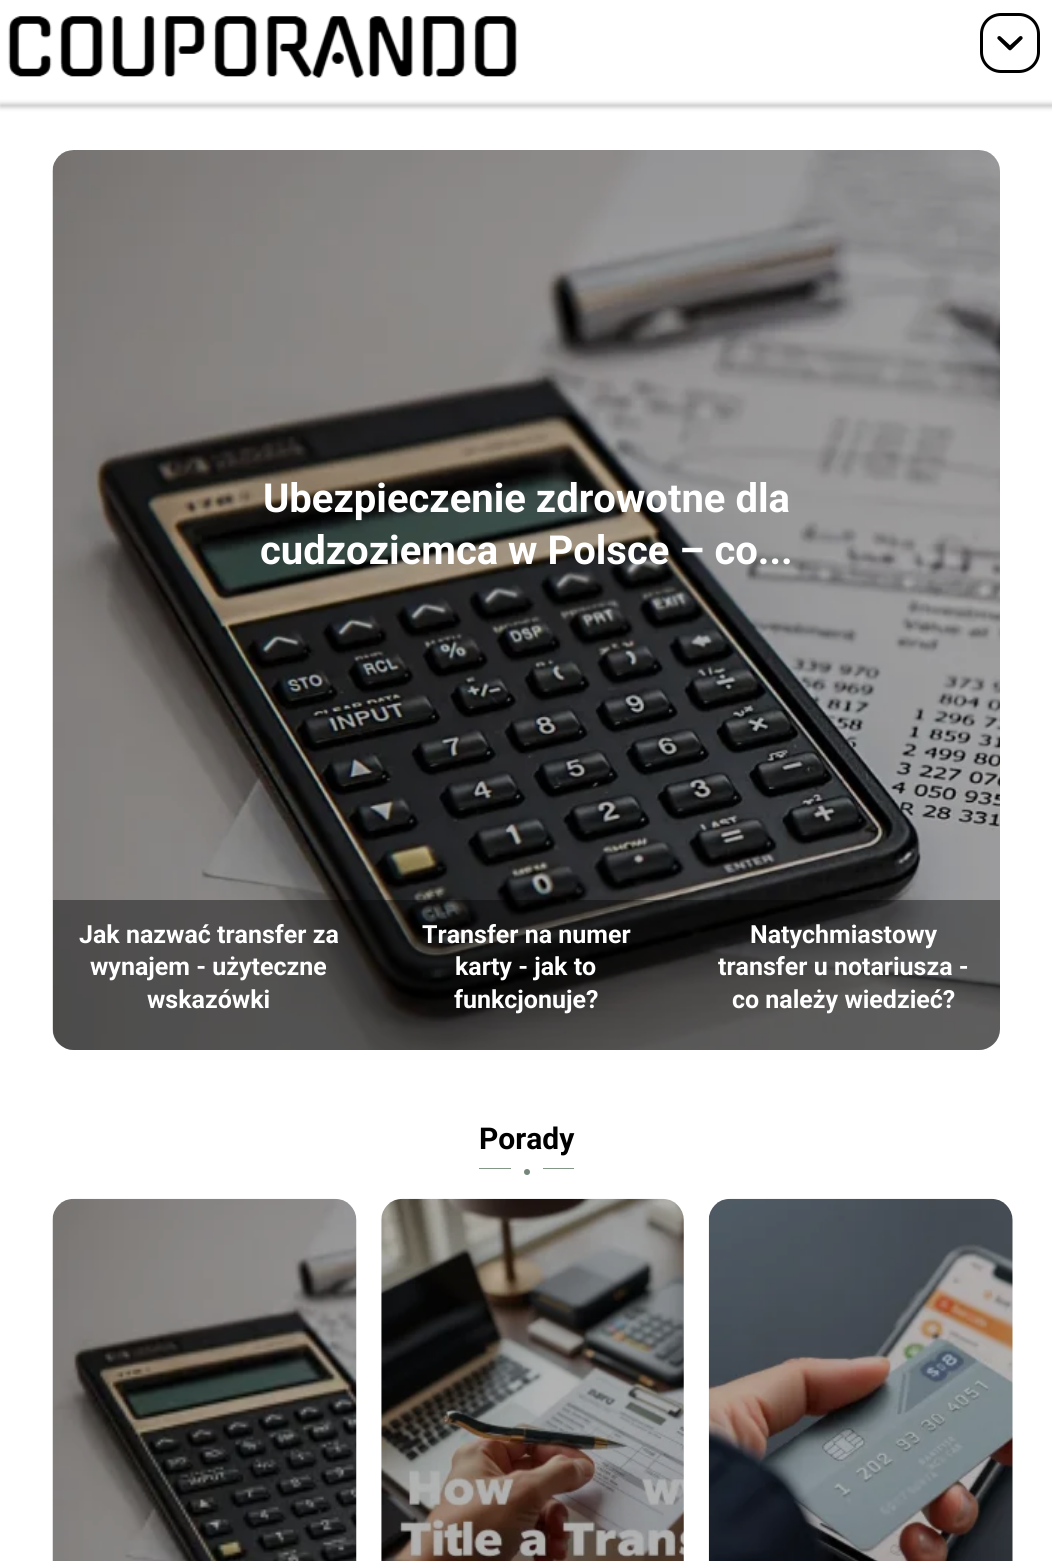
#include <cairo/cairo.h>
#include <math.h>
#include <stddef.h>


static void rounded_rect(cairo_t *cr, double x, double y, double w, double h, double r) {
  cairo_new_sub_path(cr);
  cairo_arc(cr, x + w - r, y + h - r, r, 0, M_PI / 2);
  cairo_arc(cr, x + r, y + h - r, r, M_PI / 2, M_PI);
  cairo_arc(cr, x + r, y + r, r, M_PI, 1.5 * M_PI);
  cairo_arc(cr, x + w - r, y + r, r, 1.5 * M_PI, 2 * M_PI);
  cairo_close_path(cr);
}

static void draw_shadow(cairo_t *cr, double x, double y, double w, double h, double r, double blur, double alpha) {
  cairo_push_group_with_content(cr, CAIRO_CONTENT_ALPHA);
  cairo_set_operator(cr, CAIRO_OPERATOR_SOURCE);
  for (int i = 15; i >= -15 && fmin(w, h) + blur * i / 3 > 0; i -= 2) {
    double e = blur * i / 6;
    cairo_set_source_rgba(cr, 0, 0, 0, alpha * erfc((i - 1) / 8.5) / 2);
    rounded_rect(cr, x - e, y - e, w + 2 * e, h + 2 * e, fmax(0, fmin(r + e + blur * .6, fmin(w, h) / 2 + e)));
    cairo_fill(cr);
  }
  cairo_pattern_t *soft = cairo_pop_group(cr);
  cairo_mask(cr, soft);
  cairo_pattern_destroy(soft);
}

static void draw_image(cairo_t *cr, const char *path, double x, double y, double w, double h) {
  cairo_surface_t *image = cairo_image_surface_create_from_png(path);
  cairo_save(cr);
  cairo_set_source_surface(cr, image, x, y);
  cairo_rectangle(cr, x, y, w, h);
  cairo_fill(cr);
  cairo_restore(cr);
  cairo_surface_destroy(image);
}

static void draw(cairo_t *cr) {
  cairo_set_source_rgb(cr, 1, 1, 1);
  cairo_paint(cr);
  draw_image(cr, "images/1.png", 8, 16, 509, 62);
  rounded_rect(cr, 981.5, 14.5, 57, 57, 19.5);
  cairo_set_source_rgb(cr, 0, 0, 0);
  cairo_set_line_width(cr, 3);
  cairo_stroke(cr);
  draw_image(cr, "images/2.png", 997, 36, 26, 15);
  cairo_set_source_rgb(cr, 0, 0, 0);
  draw_shadow(cr, 0, 104, 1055, 3, 0, 2.5, 0.25);
  draw_image(cr, "images/3.png", 52, 150, 948, 900);
  cairo_set_source_rgba(cr, 0, 0, 0, 0.4);
  cairo_new_path(cr);
  cairo_move_to(cr, 53, 900);
  cairo_line_to(cr, 1000, 900);
  cairo_line_to(cr, 1000, 1029);
  cairo_curve_to(cr, 1000, 1040.5, 990.5, 1050, 979, 1050);
  cairo_line_to(cr, 74, 1050);
  cairo_curve_to(cr, 62.5, 1050, 53, 1040.5, 53, 1029);
  cairo_close_path(cr);
  cairo_fill(cr);
  cairo_set_source_rgb(cr, 131 / 255.0, 151 / 255.0, 136 / 255.0);
  cairo_rectangle(cr, 479, 1168, 95, 1);
  cairo_fill(cr);
  cairo_set_source_rgb(cr, 1, 1, 1);
  cairo_rectangle(cr, 511, 1168, 32, 1);
  cairo_fill(cr);
  cairo_set_source_rgb(cr, 115 / 255.0, 135 / 255.0, 122 / 255.0);
  cairo_arc(cr, 527, 1172, 3, 0, 2 * M_PI);
  cairo_fill(cr);
  draw_image(cr, "images/4.png", 52, 1198, 305, 363);
  draw_image(cr, "images/5.png", 381, 1198, 303, 363);
  draw_image(cr, "images/6.png", 708, 1198, 305, 363);
  cairo_select_font_face(cr, "Roboto", CAIRO_FONT_SLANT_NORMAL, CAIRO_FONT_WEIGHT_BOLD);
  cairo_set_font_size(cr, 40);
  cairo_set_source_rgb(cr, 1, 1, 1);
  cairo_move_to(cr, 263, 512);
  cairo_show_text(cr, "Ubezpieczenie zdrowotne dla");
  cairo_move_to(cr, 260, 564);
  cairo_show_text(cr, "cudzoziemca w Polsce – co...");
  cairo_set_font_size(cr, 25);
  cairo_move_to(cr, 79, 943);
  cairo_show_text(cr, "Jak nazwać transfer za");
  cairo_move_to(cr, 90, 975);
  cairo_show_text(cr, "wynajem - użyteczne");
  cairo_move_to(cr, 147, 1008);
  cairo_show_text(cr, "wskazówki");
  cairo_move_to(cr, 422, 943);
  cairo_show_text(cr, "Transfer na numer");
  cairo_move_to(cr, 455, 975);
  cairo_show_text(cr, "karty - jak to");
  cairo_move_to(cr, 454, 1008);
  cairo_show_text(cr, "funkcjonuje?");
  cairo_move_to(cr, 750, 943);
  cairo_show_text(cr, "Natychmiastowy");
  cairo_move_to(cr, 718, 975);
  cairo_show_text(cr, "transfer u notariusza -");
  cairo_move_to(cr, 732, 1008);
  cairo_show_text(cr, "co należy wiedzieć?");
  cairo_set_font_size(cr, 30);
  cairo_set_source_rgb(cr, 0, 0, 0);
  cairo_move_to(cr, 479, 1149);
  cairo_show_text(cr, "Porady");
}

int main(void) {
  cairo_surface_t *surface = cairo_image_surface_create(CAIRO_FORMAT_RGB24, 1052, 1561);
  cairo_t *cr = cairo_create(surface);
  cairo_font_options_t *options = cairo_font_options_create();
  cairo_font_options_set_hint_metrics(options, CAIRO_HINT_METRICS_OFF);
  cairo_font_options_set_hint_style(options, CAIRO_HINT_STYLE_NONE);
  cairo_set_font_options(cr, options);
  cairo_set_miter_limit(cr, 4);
  draw(cr);
  cairo_surface_write_to_png(surface, "out.png");
  cairo_font_options_destroy(options);
  cairo_destroy(cr);
  cairo_surface_destroy(surface);
  return 0;
}
